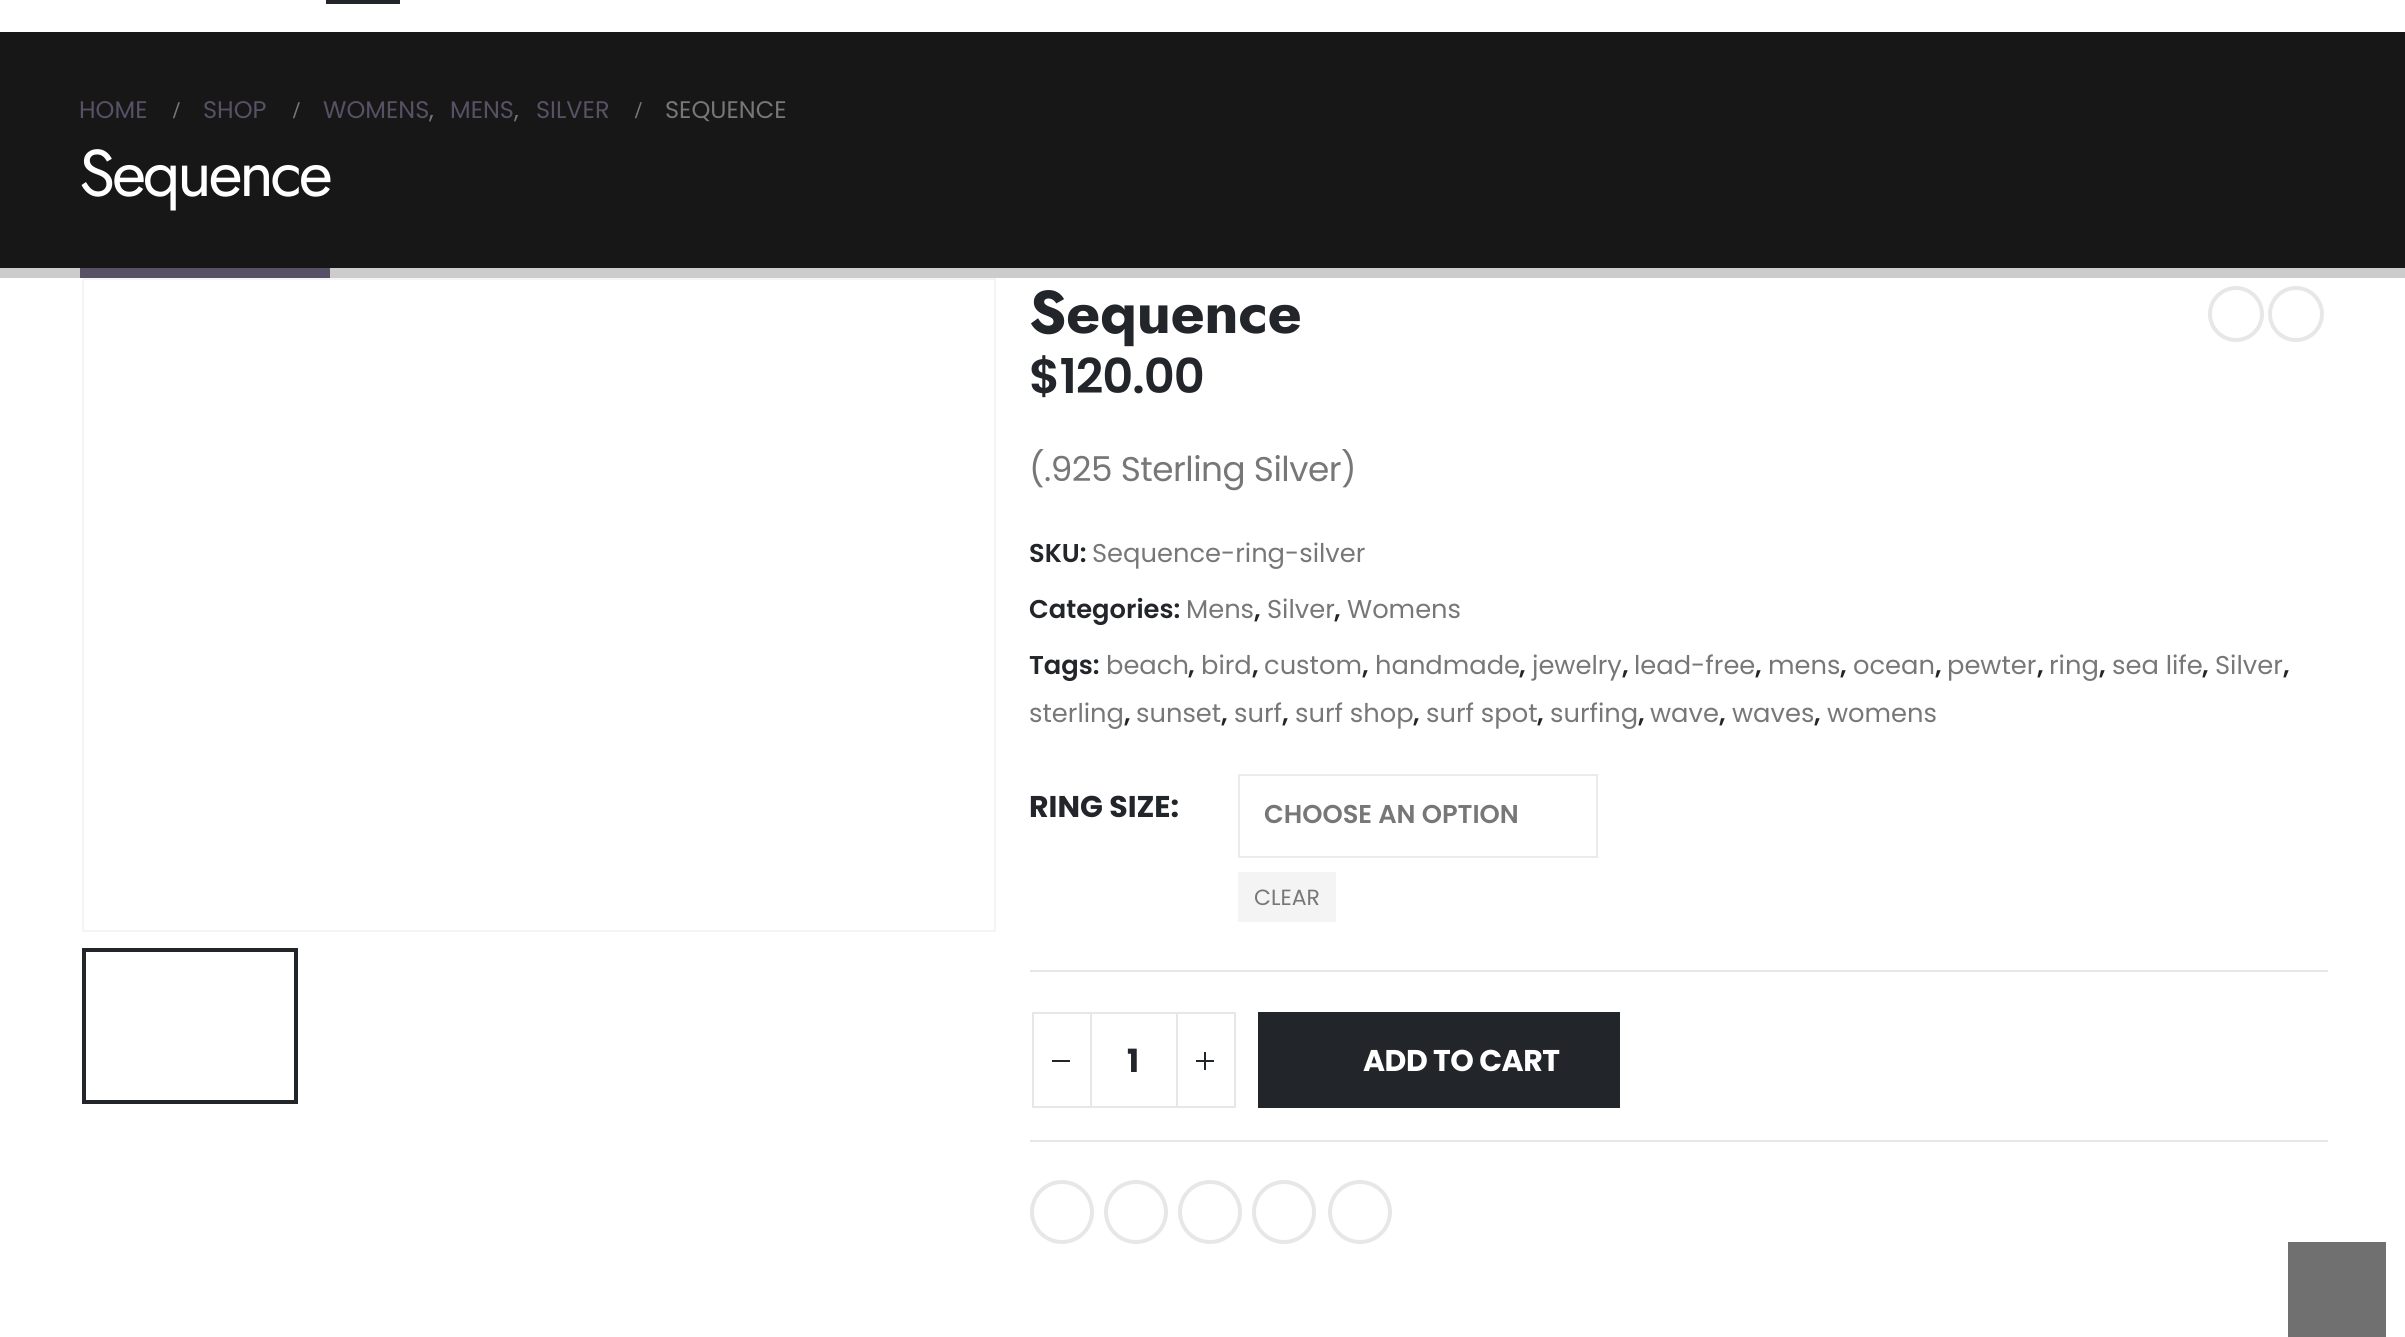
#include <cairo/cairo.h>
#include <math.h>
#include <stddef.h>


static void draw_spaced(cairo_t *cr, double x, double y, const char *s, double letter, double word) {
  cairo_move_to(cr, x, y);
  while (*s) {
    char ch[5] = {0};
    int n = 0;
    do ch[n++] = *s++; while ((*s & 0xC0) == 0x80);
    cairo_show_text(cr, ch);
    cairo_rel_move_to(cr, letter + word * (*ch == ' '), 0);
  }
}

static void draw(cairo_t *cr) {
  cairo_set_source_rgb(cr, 1, 1, 1);
  cairo_paint(cr);
  cairo_set_source_rgb(cr, 34 / 255.0, 37 / 255.0, 41 / 255.0);
  cairo_rectangle(cr, 326, 0, 74, 4);
  cairo_fill(cr);
  cairo_set_source_rgb(cr, 23 / 255.0, 23 / 255.0, 23 / 255.0);
  cairo_rectangle(cr, 0, 32, 2405, 236);
  cairo_fill(cr);
  cairo_set_source_rgb(cr, 204 / 255.0, 204 / 255.0, 204 / 255.0);
  cairo_rectangle(cr, 0, 268, 2405, 10);
  cairo_fill(cr);
  cairo_set_source_rgb(cr, 88 / 255.0, 80 / 255.0, 101 / 255.0);
  cairo_rectangle(cr, 80, 268, 250, 10);
  cairo_fill(cr);
  cairo_rectangle(cr, 83, 279, 912, 652);
  cairo_set_source_rgb(cr, 244 / 255.0, 244 / 255.0, 244 / 255.0);
  cairo_stroke(cr);
  cairo_rectangle(cr, 84, 950, 212, 152);
  cairo_set_source_rgb(cr, 34 / 255.0, 37 / 255.0, 41 / 255.0);
  cairo_set_line_width(cr, 4);
  cairo_stroke(cr);
  cairo_arc(cr, 2236, 314, 26, 0, 2 * M_PI);
  cairo_set_source_rgb(cr, 231 / 255.0, 231 / 255.0, 231 / 255.0);
  cairo_stroke(cr);
  cairo_arc(cr, 2296, 314, 26, 0, 2 * M_PI);
  cairo_stroke(cr);
  cairo_rectangle(cr, 1239, 775, 358, 82);
  cairo_set_source_rgb(cr, 235 / 255.0, 235 / 255.0, 235 / 255.0);
  cairo_set_line_width(cr, 2);
  cairo_stroke(cr);
  cairo_set_source_rgb(cr, 244 / 255.0, 244 / 255.0, 244 / 255.0);
  cairo_rectangle(cr, 1238, 872, 98, 50);
  cairo_fill(cr);
  cairo_set_source_rgb(cr, 231 / 255.0, 231 / 255.0, 231 / 255.0);
  cairo_rectangle(cr, 1030, 970, 1298, 2);
  cairo_fill(cr);
  cairo_rectangle(cr, 1030, 1140, 1298, 2);
  cairo_fill(cr);
  cairo_rectangle(cr, 1090, 1012, 88, 2);
  cairo_fill(cr);
  cairo_rectangle(cr, 1090, 1106, 88, 2);
  cairo_fill(cr);
  cairo_rectangle(cr, 1033, 1013, 58, 94);
  cairo_stroke(cr);
  cairo_set_source_rgb(cr, 34 / 255.0, 37 / 255.0, 41 / 255.0);
  cairo_rectangle(cr, 1052, 1060, 18, 2);
  cairo_fill(cr);
  cairo_rectangle(cr, 1177, 1013, 58, 94);
  cairo_set_source_rgb(cr, 231 / 255.0, 231 / 255.0, 231 / 255.0);
  cairo_stroke(cr);
  cairo_set_source_rgb(cr, 34 / 255.0, 37 / 255.0, 41 / 255.0);
  cairo_rectangle(cr, 1196, 1060, 18, 2);
  cairo_fill(cr);
  cairo_rectangle(cr, 1204, 1052, 2, 18);
  cairo_fill(cr);
  cairo_rectangle(cr, 1258, 1012, 362, 96);
  cairo_fill(cr);
  cairo_arc(cr, 1062, 1212, 30, 0, 2 * M_PI);
  cairo_set_source_rgb(cr, 231 / 255.0, 231 / 255.0, 231 / 255.0);
  cairo_set_line_width(cr, 4);
  cairo_stroke(cr);
  cairo_arc(cr, 1136, 1212, 30, 0, 2 * M_PI);
  cairo_stroke(cr);
  cairo_arc(cr, 1210, 1212, 30, 0, 2 * M_PI);
  cairo_stroke(cr);
  cairo_arc(cr, 1284, 1212, 30, 0, 2 * M_PI);
  cairo_stroke(cr);
  cairo_arc(cr, 1360, 1212, 30, 0, 2 * M_PI);
  cairo_stroke(cr);
  cairo_set_source_rgb(cr, 112 / 255.0, 112 / 255.0, 112 / 255.0);
  cairo_rectangle(cr, 2288, 1242, 98, 95);
  cairo_fill(cr);
  cairo_select_font_face(cr, "Poppins", CAIRO_FONT_SLANT_NORMAL, CAIRO_FONT_WEIGHT_NORMAL);
  cairo_set_font_size(cr, 24);
  cairo_set_source_rgb(cr, 88 / 255.0, 80 / 255.0, 101 / 255.0);
  cairo_move_to(cr, 79, 118);
  cairo_show_text(cr, "HOME");
  cairo_select_font_face(cr, "Liberation Serif", CAIRO_FONT_SLANT_NORMAL, CAIRO_FONT_WEIGHT_BOLD);
  cairo_set_source_rgb(cr, 119 / 255.0, 119 / 255.0, 119 / 255.0);
  cairo_move_to(cr, 173, 118);
  cairo_show_text(cr, "/");
  cairo_select_font_face(cr, "Poppins", CAIRO_FONT_SLANT_NORMAL, CAIRO_FONT_WEIGHT_NORMAL);
  cairo_set_source_rgb(cr, 88 / 255.0, 80 / 255.0, 101 / 255.0);
  cairo_move_to(cr, 203, 118);
  cairo_show_text(cr, "SHOP");
  cairo_select_font_face(cr, "Liberation Serif", CAIRO_FONT_SLANT_NORMAL, CAIRO_FONT_WEIGHT_BOLD);
  cairo_set_source_rgb(cr, 119 / 255.0, 119 / 255.0, 119 / 255.0);
  cairo_move_to(cr, 293, 118);
  cairo_show_text(cr, "/");
  cairo_select_font_face(cr, "Poppins", CAIRO_FONT_SLANT_NORMAL, CAIRO_FONT_WEIGHT_NORMAL);
  cairo_set_source_rgb(cr, 88 / 255.0, 80 / 255.0, 101 / 255.0);
  cairo_move_to(cr, 323, 118);
  cairo_show_text(cr, "WOMENS");
  cairo_set_source_rgb(cr, 119 / 255.0, 119 / 255.0, 119 / 255.0);
  cairo_move_to(cr, 429, 118);
  cairo_show_text(cr, ",");
  cairo_set_source_rgb(cr, 88 / 255.0, 80 / 255.0, 101 / 255.0);
  cairo_move_to(cr, 450, 118);
  cairo_show_text(cr, "MENS");
  cairo_set_source_rgb(cr, 119 / 255.0, 119 / 255.0, 119 / 255.0);
  cairo_move_to(cr, 514, 118);
  cairo_show_text(cr, ",");
  cairo_set_source_rgb(cr, 88 / 255.0, 80 / 255.0, 101 / 255.0);
  cairo_move_to(cr, 536, 118);
  cairo_show_text(cr, "SILVER");
  cairo_select_font_face(cr, "Liberation Serif", CAIRO_FONT_SLANT_NORMAL, CAIRO_FONT_WEIGHT_BOLD);
  cairo_set_source_rgb(cr, 119 / 255.0, 119 / 255.0, 119 / 255.0);
  cairo_move_to(cr, 635, 118);
  cairo_show_text(cr, "/");
  cairo_select_font_face(cr, "Poppins", CAIRO_FONT_SLANT_NORMAL, CAIRO_FONT_WEIGHT_NORMAL);
  cairo_move_to(cr, 665, 118);
  cairo_show_text(cr, "SEQUENCE");
  cairo_select_font_face(cr, "Jost", CAIRO_FONT_SLANT_NORMAL, CAIRO_FONT_WEIGHT_NORMAL);
  cairo_set_font_size(cr, 66);
  cairo_set_source_rgb(cr, 1, 1, 1);
  draw_spaced(cr, 79, 196, "Sequence", -3.25, 0);
  cairo_select_font_face(cr, "Jost", CAIRO_FONT_SLANT_NORMAL, CAIRO_FONT_WEIGHT_BOLD);
  cairo_set_font_size(cr, 60);
  cairo_set_source_rgb(cr, 34 / 255.0, 37 / 255.0, 41 / 255.0);
  draw_spaced(cr, 1029, 333, "Sequence", -0.5, 0);
  cairo_select_font_face(cr, "Poppins SemiBold", CAIRO_FONT_SLANT_NORMAL, CAIRO_FONT_WEIGHT_NORMAL);
  cairo_set_font_size(cr, 48);
  draw_spaced(cr, 1029, 393, "$120.00", -1, 0);
  cairo_select_font_face(cr, "Poppins", CAIRO_FONT_SLANT_NORMAL, CAIRO_FONT_WEIGHT_NORMAL);
  cairo_set_font_size(cr, 34.25);
  cairo_set_source_rgb(cr, 119 / 255.0, 119 / 255.0, 119 / 255.0);
  draw_spaced(cr, 1029, 481, "(.925 Sterling Silver)", -0.5, 0);
  cairo_select_font_face(cr, "Poppins SemiBold", CAIRO_FONT_SLANT_NORMAL, CAIRO_FONT_WEIGHT_NORMAL);
  cairo_set_font_size(cr, 25.75);
  cairo_set_source_rgb(cr, 34 / 255.0, 37 / 255.0, 41 / 255.0);
  cairo_move_to(cr, 1029, 562);
  cairo_show_text(cr, "SKU:");
  cairo_select_font_face(cr, "Poppins", CAIRO_FONT_SLANT_NORMAL, CAIRO_FONT_WEIGHT_NORMAL);
  cairo_set_source_rgb(cr, 119 / 255.0, 119 / 255.0, 119 / 255.0);
  cairo_move_to(cr, 1092, 562);
  cairo_show_text(cr, "Sequence-ring-silver");
  cairo_select_font_face(cr, "Poppins SemiBold", CAIRO_FONT_SLANT_NORMAL, CAIRO_FONT_WEIGHT_NORMAL);
  cairo_set_source_rgb(cr, 34 / 255.0, 37 / 255.0, 41 / 255.0);
  cairo_move_to(cr, 1029, 618);
  cairo_show_text(cr, "Categories:");
  cairo_select_font_face(cr, "Poppins", CAIRO_FONT_SLANT_NORMAL, CAIRO_FONT_WEIGHT_NORMAL);
  cairo_set_source_rgb(cr, 119 / 255.0, 119 / 255.0, 119 / 255.0);
  cairo_move_to(cr, 1186, 618);
  cairo_show_text(cr, "Mens");
  cairo_select_font_face(cr, "Poppins SemiBold", CAIRO_FONT_SLANT_NORMAL, CAIRO_FONT_WEIGHT_NORMAL);
  cairo_set_source_rgb(cr, 34 / 255.0, 37 / 255.0, 41 / 255.0);
  cairo_move_to(cr, 1254, 618);
  cairo_show_text(cr, ",");
  cairo_select_font_face(cr, "Poppins", CAIRO_FONT_SLANT_NORMAL, CAIRO_FONT_WEIGHT_NORMAL);
  cairo_set_source_rgb(cr, 119 / 255.0, 119 / 255.0, 119 / 255.0);
  cairo_move_to(cr, 1267, 618);
  cairo_show_text(cr, "Silver");
  cairo_select_font_face(cr, "Poppins SemiBold", CAIRO_FONT_SLANT_NORMAL, CAIRO_FONT_WEIGHT_NORMAL);
  cairo_set_source_rgb(cr, 34 / 255.0, 37 / 255.0, 41 / 255.0);
  cairo_move_to(cr, 1334, 618);
  cairo_show_text(cr, ",");
  cairo_select_font_face(cr, "Poppins", CAIRO_FONT_SLANT_NORMAL, CAIRO_FONT_WEIGHT_NORMAL);
  cairo_set_source_rgb(cr, 119 / 255.0, 119 / 255.0, 119 / 255.0);
  cairo_move_to(cr, 1347, 618);
  cairo_show_text(cr, "Womens");
  cairo_select_font_face(cr, "Poppins SemiBold", CAIRO_FONT_SLANT_NORMAL, CAIRO_FONT_WEIGHT_NORMAL);
  cairo_set_source_rgb(cr, 34 / 255.0, 37 / 255.0, 41 / 255.0);
  cairo_move_to(cr, 1029, 674);
  cairo_show_text(cr, "Tags:");
  cairo_select_font_face(cr, "Poppins", CAIRO_FONT_SLANT_NORMAL, CAIRO_FONT_WEIGHT_NORMAL);
  cairo_set_source_rgb(cr, 119 / 255.0, 119 / 255.0, 119 / 255.0);
  cairo_move_to(cr, 1106, 674);
  cairo_show_text(cr, "beach");
  cairo_select_font_face(cr, "Poppins SemiBold", CAIRO_FONT_SLANT_NORMAL, CAIRO_FONT_WEIGHT_NORMAL);
  cairo_set_source_rgb(cr, 34 / 255.0, 37 / 255.0, 41 / 255.0);
  cairo_move_to(cr, 1188, 674);
  cairo_show_text(cr, ",");
  cairo_select_font_face(cr, "Poppins", CAIRO_FONT_SLANT_NORMAL, CAIRO_FONT_WEIGHT_NORMAL);
  cairo_set_source_rgb(cr, 119 / 255.0, 119 / 255.0, 119 / 255.0);
  cairo_move_to(cr, 1201, 674);
  cairo_show_text(cr, "bird");
  cairo_select_font_face(cr, "Poppins SemiBold", CAIRO_FONT_SLANT_NORMAL, CAIRO_FONT_WEIGHT_NORMAL);
  cairo_set_source_rgb(cr, 34 / 255.0, 37 / 255.0, 41 / 255.0);
  cairo_move_to(cr, 1252, 674);
  cairo_show_text(cr, ",");
  cairo_select_font_face(cr, "Poppins", CAIRO_FONT_SLANT_NORMAL, CAIRO_FONT_WEIGHT_NORMAL);
  cairo_set_source_rgb(cr, 119 / 255.0, 119 / 255.0, 119 / 255.0);
  cairo_move_to(cr, 1264, 674);
  cairo_show_text(cr, "custom");
  cairo_select_font_face(cr, "Poppins SemiBold", CAIRO_FONT_SLANT_NORMAL, CAIRO_FONT_WEIGHT_NORMAL);
  cairo_set_source_rgb(cr, 34 / 255.0, 37 / 255.0, 41 / 255.0);
  cairo_move_to(cr, 1362, 674);
  cairo_show_text(cr, ",");
  cairo_select_font_face(cr, "Poppins", CAIRO_FONT_SLANT_NORMAL, CAIRO_FONT_WEIGHT_NORMAL);
  cairo_set_source_rgb(cr, 119 / 255.0, 119 / 255.0, 119 / 255.0);
  cairo_move_to(cr, 1375, 674);
  cairo_show_text(cr, "handmade");
  cairo_select_font_face(cr, "Poppins SemiBold", CAIRO_FONT_SLANT_NORMAL, CAIRO_FONT_WEIGHT_NORMAL);
  cairo_set_source_rgb(cr, 34 / 255.0, 37 / 255.0, 41 / 255.0);
  cairo_move_to(cr, 1519, 674);
  cairo_show_text(cr, ",");
  cairo_select_font_face(cr, "Poppins", CAIRO_FONT_SLANT_NORMAL, CAIRO_FONT_WEIGHT_NORMAL);
  cairo_set_source_rgb(cr, 119 / 255.0, 119 / 255.0, 119 / 255.0);
  cairo_move_to(cr, 1532, 674);
  cairo_show_text(cr, "jewelry");
  cairo_select_font_face(cr, "Poppins SemiBold", CAIRO_FONT_SLANT_NORMAL, CAIRO_FONT_WEIGHT_NORMAL);
  cairo_set_source_rgb(cr, 34 / 255.0, 37 / 255.0, 41 / 255.0);
  cairo_move_to(cr, 1622, 674);
  cairo_show_text(cr, ",");
  cairo_select_font_face(cr, "Poppins", CAIRO_FONT_SLANT_NORMAL, CAIRO_FONT_WEIGHT_NORMAL);
  cairo_set_source_rgb(cr, 119 / 255.0, 119 / 255.0, 119 / 255.0);
  cairo_move_to(cr, 1634, 674);
  cairo_show_text(cr, "lead-free");
  cairo_select_font_face(cr, "Poppins SemiBold", CAIRO_FONT_SLANT_NORMAL, CAIRO_FONT_WEIGHT_NORMAL);
  cairo_set_source_rgb(cr, 34 / 255.0, 37 / 255.0, 41 / 255.0);
  cairo_move_to(cr, 1755, 674);
  cairo_show_text(cr, ",");
  cairo_select_font_face(cr, "Poppins", CAIRO_FONT_SLANT_NORMAL, CAIRO_FONT_WEIGHT_NORMAL);
  cairo_set_source_rgb(cr, 119 / 255.0, 119 / 255.0, 119 / 255.0);
  cairo_move_to(cr, 1768, 674);
  cairo_show_text(cr, "mens");
  cairo_select_font_face(cr, "Poppins SemiBold", CAIRO_FONT_SLANT_NORMAL, CAIRO_FONT_WEIGHT_NORMAL);
  cairo_set_source_rgb(cr, 34 / 255.0, 37 / 255.0, 41 / 255.0);
  cairo_move_to(cr, 1840, 674);
  cairo_show_text(cr, ",");
  cairo_select_font_face(cr, "Poppins", CAIRO_FONT_SLANT_NORMAL, CAIRO_FONT_WEIGHT_NORMAL);
  cairo_set_source_rgb(cr, 119 / 255.0, 119 / 255.0, 119 / 255.0);
  cairo_move_to(cr, 1853, 674);
  cairo_show_text(cr, "ocean");
  cairo_select_font_face(cr, "Poppins SemiBold", CAIRO_FONT_SLANT_NORMAL, CAIRO_FONT_WEIGHT_NORMAL);
  cairo_set_source_rgb(cr, 34 / 255.0, 37 / 255.0, 41 / 255.0);
  cairo_move_to(cr, 1935, 674);
  cairo_show_text(cr, ",");
  cairo_select_font_face(cr, "Poppins", CAIRO_FONT_SLANT_NORMAL, CAIRO_FONT_WEIGHT_NORMAL);
  cairo_set_source_rgb(cr, 119 / 255.0, 119 / 255.0, 119 / 255.0);
  cairo_move_to(cr, 1947, 674);
  cairo_show_text(cr, "pewter");
  cairo_select_font_face(cr, "Poppins SemiBold", CAIRO_FONT_SLANT_NORMAL, CAIRO_FONT_WEIGHT_NORMAL);
  cairo_set_source_rgb(cr, 34 / 255.0, 37 / 255.0, 41 / 255.0);
  cairo_move_to(cr, 2037, 674);
  cairo_show_text(cr, ",");
  cairo_select_font_face(cr, "Poppins", CAIRO_FONT_SLANT_NORMAL, CAIRO_FONT_WEIGHT_NORMAL);
  cairo_set_source_rgb(cr, 119 / 255.0, 119 / 255.0, 119 / 255.0);
  cairo_move_to(cr, 2049, 674);
  cairo_show_text(cr, "ring");
  cairo_select_font_face(cr, "Poppins SemiBold", CAIRO_FONT_SLANT_NORMAL, CAIRO_FONT_WEIGHT_NORMAL);
  cairo_set_source_rgb(cr, 34 / 255.0, 37 / 255.0, 41 / 255.0);
  cairo_move_to(cr, 2099, 674);
  cairo_show_text(cr, ",");
  cairo_select_font_face(cr, "Poppins", CAIRO_FONT_SLANT_NORMAL, CAIRO_FONT_WEIGHT_NORMAL);
  cairo_set_source_rgb(cr, 119 / 255.0, 119 / 255.0, 119 / 255.0);
  cairo_move_to(cr, 2112, 674);
  cairo_show_text(cr, "sea life");
  cairo_select_font_face(cr, "Poppins SemiBold", CAIRO_FONT_SLANT_NORMAL, CAIRO_FONT_WEIGHT_NORMAL);
  cairo_set_source_rgb(cr, 34 / 255.0, 37 / 255.0, 41 / 255.0);
  cairo_move_to(cr, 2202, 674);
  cairo_show_text(cr, ",");
  cairo_select_font_face(cr, "Poppins", CAIRO_FONT_SLANT_NORMAL, CAIRO_FONT_WEIGHT_NORMAL);
  cairo_set_source_rgb(cr, 119 / 255.0, 119 / 255.0, 119 / 255.0);
  cairo_move_to(cr, 2215, 674);
  cairo_show_text(cr, "Silver");
  cairo_select_font_face(cr, "Poppins SemiBold", CAIRO_FONT_SLANT_NORMAL, CAIRO_FONT_WEIGHT_NORMAL);
  cairo_set_source_rgb(cr, 34 / 255.0, 37 / 255.0, 41 / 255.0);
  cairo_move_to(cr, 2283, 674);
  cairo_show_text(cr, ",");
  cairo_select_font_face(cr, "Poppins", CAIRO_FONT_SLANT_NORMAL, CAIRO_FONT_WEIGHT_NORMAL);
  cairo_set_source_rgb(cr, 119 / 255.0, 119 / 255.0, 119 / 255.0);
  cairo_move_to(cr, 1029, 722);
  cairo_show_text(cr, "sterling");
  cairo_select_font_face(cr, "Poppins SemiBold", CAIRO_FONT_SLANT_NORMAL, CAIRO_FONT_WEIGHT_NORMAL);
  cairo_set_source_rgb(cr, 34 / 255.0, 37 / 255.0, 41 / 255.0);
  cairo_move_to(cr, 1124, 722);
  cairo_show_text(cr, ",");
  cairo_select_font_face(cr, "Poppins", CAIRO_FONT_SLANT_NORMAL, CAIRO_FONT_WEIGHT_NORMAL);
  cairo_set_source_rgb(cr, 119 / 255.0, 119 / 255.0, 119 / 255.0);
  cairo_move_to(cr, 1136, 722);
  cairo_show_text(cr, "sunset");
  cairo_select_font_face(cr, "Poppins SemiBold", CAIRO_FONT_SLANT_NORMAL, CAIRO_FONT_WEIGHT_NORMAL);
  cairo_set_source_rgb(cr, 34 / 255.0, 37 / 255.0, 41 / 255.0);
  cairo_move_to(cr, 1221, 722);
  cairo_show_text(cr, ",");
  cairo_select_font_face(cr, "Poppins", CAIRO_FONT_SLANT_NORMAL, CAIRO_FONT_WEIGHT_NORMAL);
  cairo_set_source_rgb(cr, 119 / 255.0, 119 / 255.0, 119 / 255.0);
  cairo_move_to(cr, 1234, 722);
  cairo_show_text(cr, "surf");
  cairo_select_font_face(cr, "Poppins SemiBold", CAIRO_FONT_SLANT_NORMAL, CAIRO_FONT_WEIGHT_NORMAL);
  cairo_set_source_rgb(cr, 34 / 255.0, 37 / 255.0, 41 / 255.0);
  cairo_move_to(cr, 1282, 722);
  cairo_show_text(cr, ",");
  cairo_select_font_face(cr, "Poppins", CAIRO_FONT_SLANT_NORMAL, CAIRO_FONT_WEIGHT_NORMAL);
  cairo_set_source_rgb(cr, 119 / 255.0, 119 / 255.0, 119 / 255.0);
  cairo_move_to(cr, 1295, 722);
  cairo_show_text(cr, "surf shop");
  cairo_select_font_face(cr, "Poppins SemiBold", CAIRO_FONT_SLANT_NORMAL, CAIRO_FONT_WEIGHT_NORMAL);
  cairo_set_source_rgb(cr, 34 / 255.0, 37 / 255.0, 41 / 255.0);
  cairo_move_to(cr, 1413, 722);
  cairo_show_text(cr, ",");
  cairo_select_font_face(cr, "Poppins", CAIRO_FONT_SLANT_NORMAL, CAIRO_FONT_WEIGHT_NORMAL);
  cairo_set_source_rgb(cr, 119 / 255.0, 119 / 255.0, 119 / 255.0);
  cairo_move_to(cr, 1426, 722);
  cairo_show_text(cr, "surf spot");
  cairo_select_font_face(cr, "Poppins SemiBold", CAIRO_FONT_SLANT_NORMAL, CAIRO_FONT_WEIGHT_NORMAL);
  cairo_set_source_rgb(cr, 34 / 255.0, 37 / 255.0, 41 / 255.0);
  cairo_move_to(cr, 1537, 722);
  cairo_show_text(cr, ",");
  cairo_select_font_face(cr, "Poppins", CAIRO_FONT_SLANT_NORMAL, CAIRO_FONT_WEIGHT_NORMAL);
  cairo_set_source_rgb(cr, 119 / 255.0, 119 / 255.0, 119 / 255.0);
  cairo_move_to(cr, 1550, 722);
  cairo_show_text(cr, "surfing");
  cairo_select_font_face(cr, "Poppins SemiBold", CAIRO_FONT_SLANT_NORMAL, CAIRO_FONT_WEIGHT_NORMAL);
  cairo_set_source_rgb(cr, 34 / 255.0, 37 / 255.0, 41 / 255.0);
  cairo_move_to(cr, 1638, 722);
  cairo_show_text(cr, ",");
  cairo_select_font_face(cr, "Poppins", CAIRO_FONT_SLANT_NORMAL, CAIRO_FONT_WEIGHT_NORMAL);
  cairo_set_source_rgb(cr, 119 / 255.0, 119 / 255.0, 119 / 255.0);
  cairo_move_to(cr, 1650, 722);
  cairo_show_text(cr, "wave");
  cairo_select_font_face(cr, "Poppins SemiBold", CAIRO_FONT_SLANT_NORMAL, CAIRO_FONT_WEIGHT_NORMAL);
  cairo_set_source_rgb(cr, 34 / 255.0, 37 / 255.0, 41 / 255.0);
  cairo_move_to(cr, 1719, 722);
  cairo_show_text(cr, ",");
  cairo_select_font_face(cr, "Poppins", CAIRO_FONT_SLANT_NORMAL, CAIRO_FONT_WEIGHT_NORMAL);
  cairo_set_source_rgb(cr, 119 / 255.0, 119 / 255.0, 119 / 255.0);
  cairo_move_to(cr, 1732, 722);
  cairo_show_text(cr, "waves");
  cairo_select_font_face(cr, "Poppins SemiBold", CAIRO_FONT_SLANT_NORMAL, CAIRO_FONT_WEIGHT_NORMAL);
  cairo_set_source_rgb(cr, 34 / 255.0, 37 / 255.0, 41 / 255.0);
  cairo_move_to(cr, 1814, 722);
  cairo_show_text(cr, ",");
  cairo_select_font_face(cr, "Poppins", CAIRO_FONT_SLANT_NORMAL, CAIRO_FONT_WEIGHT_NORMAL);
  cairo_set_source_rgb(cr, 119 / 255.0, 119 / 255.0, 119 / 255.0);
  cairo_move_to(cr, 1827, 722);
  cairo_show_text(cr, "womens");
  cairo_select_font_face(cr, "Poppins", CAIRO_FONT_SLANT_NORMAL, CAIRO_FONT_WEIGHT_BOLD);
  cairo_set_font_size(cr, 30);
  cairo_set_source_rgb(cr, 34 / 255.0, 37 / 255.0, 41 / 255.0);
  cairo_move_to(cr, 1029, 817);
  cairo_show_text(cr, "RING SIZE:");
  cairo_select_font_face(cr, "Poppins SemiBold", CAIRO_FONT_SLANT_NORMAL, CAIRO_FONT_WEIGHT_NORMAL);
  cairo_set_font_size(cr, 25.75);
  cairo_set_source_rgb(cr, 119 / 255.0, 119 / 255.0, 119 / 255.0);
  cairo_move_to(cr, 1264, 823);
  cairo_show_text(cr, "CHOOSE AN OPTION");
  cairo_select_font_face(cr, "Poppins", CAIRO_FONT_SLANT_NORMAL, CAIRO_FONT_WEIGHT_NORMAL);
  cairo_set_font_size(cr, 22);
  cairo_move_to(cr, 1254, 905);
  cairo_show_text(cr, "CLEAR");
  cairo_select_font_face(cr, "Poppins", CAIRO_FONT_SLANT_NORMAL, CAIRO_FONT_WEIGHT_BOLD);
  cairo_set_font_size(cr, 32);
  cairo_set_source_rgb(cr, 34 / 255.0, 37 / 255.0, 41 / 255.0);
  cairo_move_to(cr, 1127, 1072);
  cairo_show_text(cr, "1");
  cairo_set_font_size(cr, 30);
  cairo_set_source_rgb(cr, 1, 1, 1);
  draw_spaced(cr, 1363, 1071, "ADD TO CART", -0.5, 0);
}

int main(void) {
  cairo_surface_t *surface = cairo_image_surface_create(CAIRO_FORMAT_RGB24, 2405, 1337);
  cairo_t *cr = cairo_create(surface);
  cairo_font_options_t *options = cairo_font_options_create();
  cairo_font_options_set_hint_metrics(options, CAIRO_HINT_METRICS_OFF);
  cairo_font_options_set_hint_style(options, CAIRO_HINT_STYLE_NONE);
  cairo_set_font_options(cr, options);
  cairo_set_miter_limit(cr, 4);
  draw(cr);
  cairo_surface_write_to_png(surface, "out.png");
  cairo_font_options_destroy(options);
  cairo_destroy(cr);
  cairo_surface_destroy(surface);
  return 0;
}
